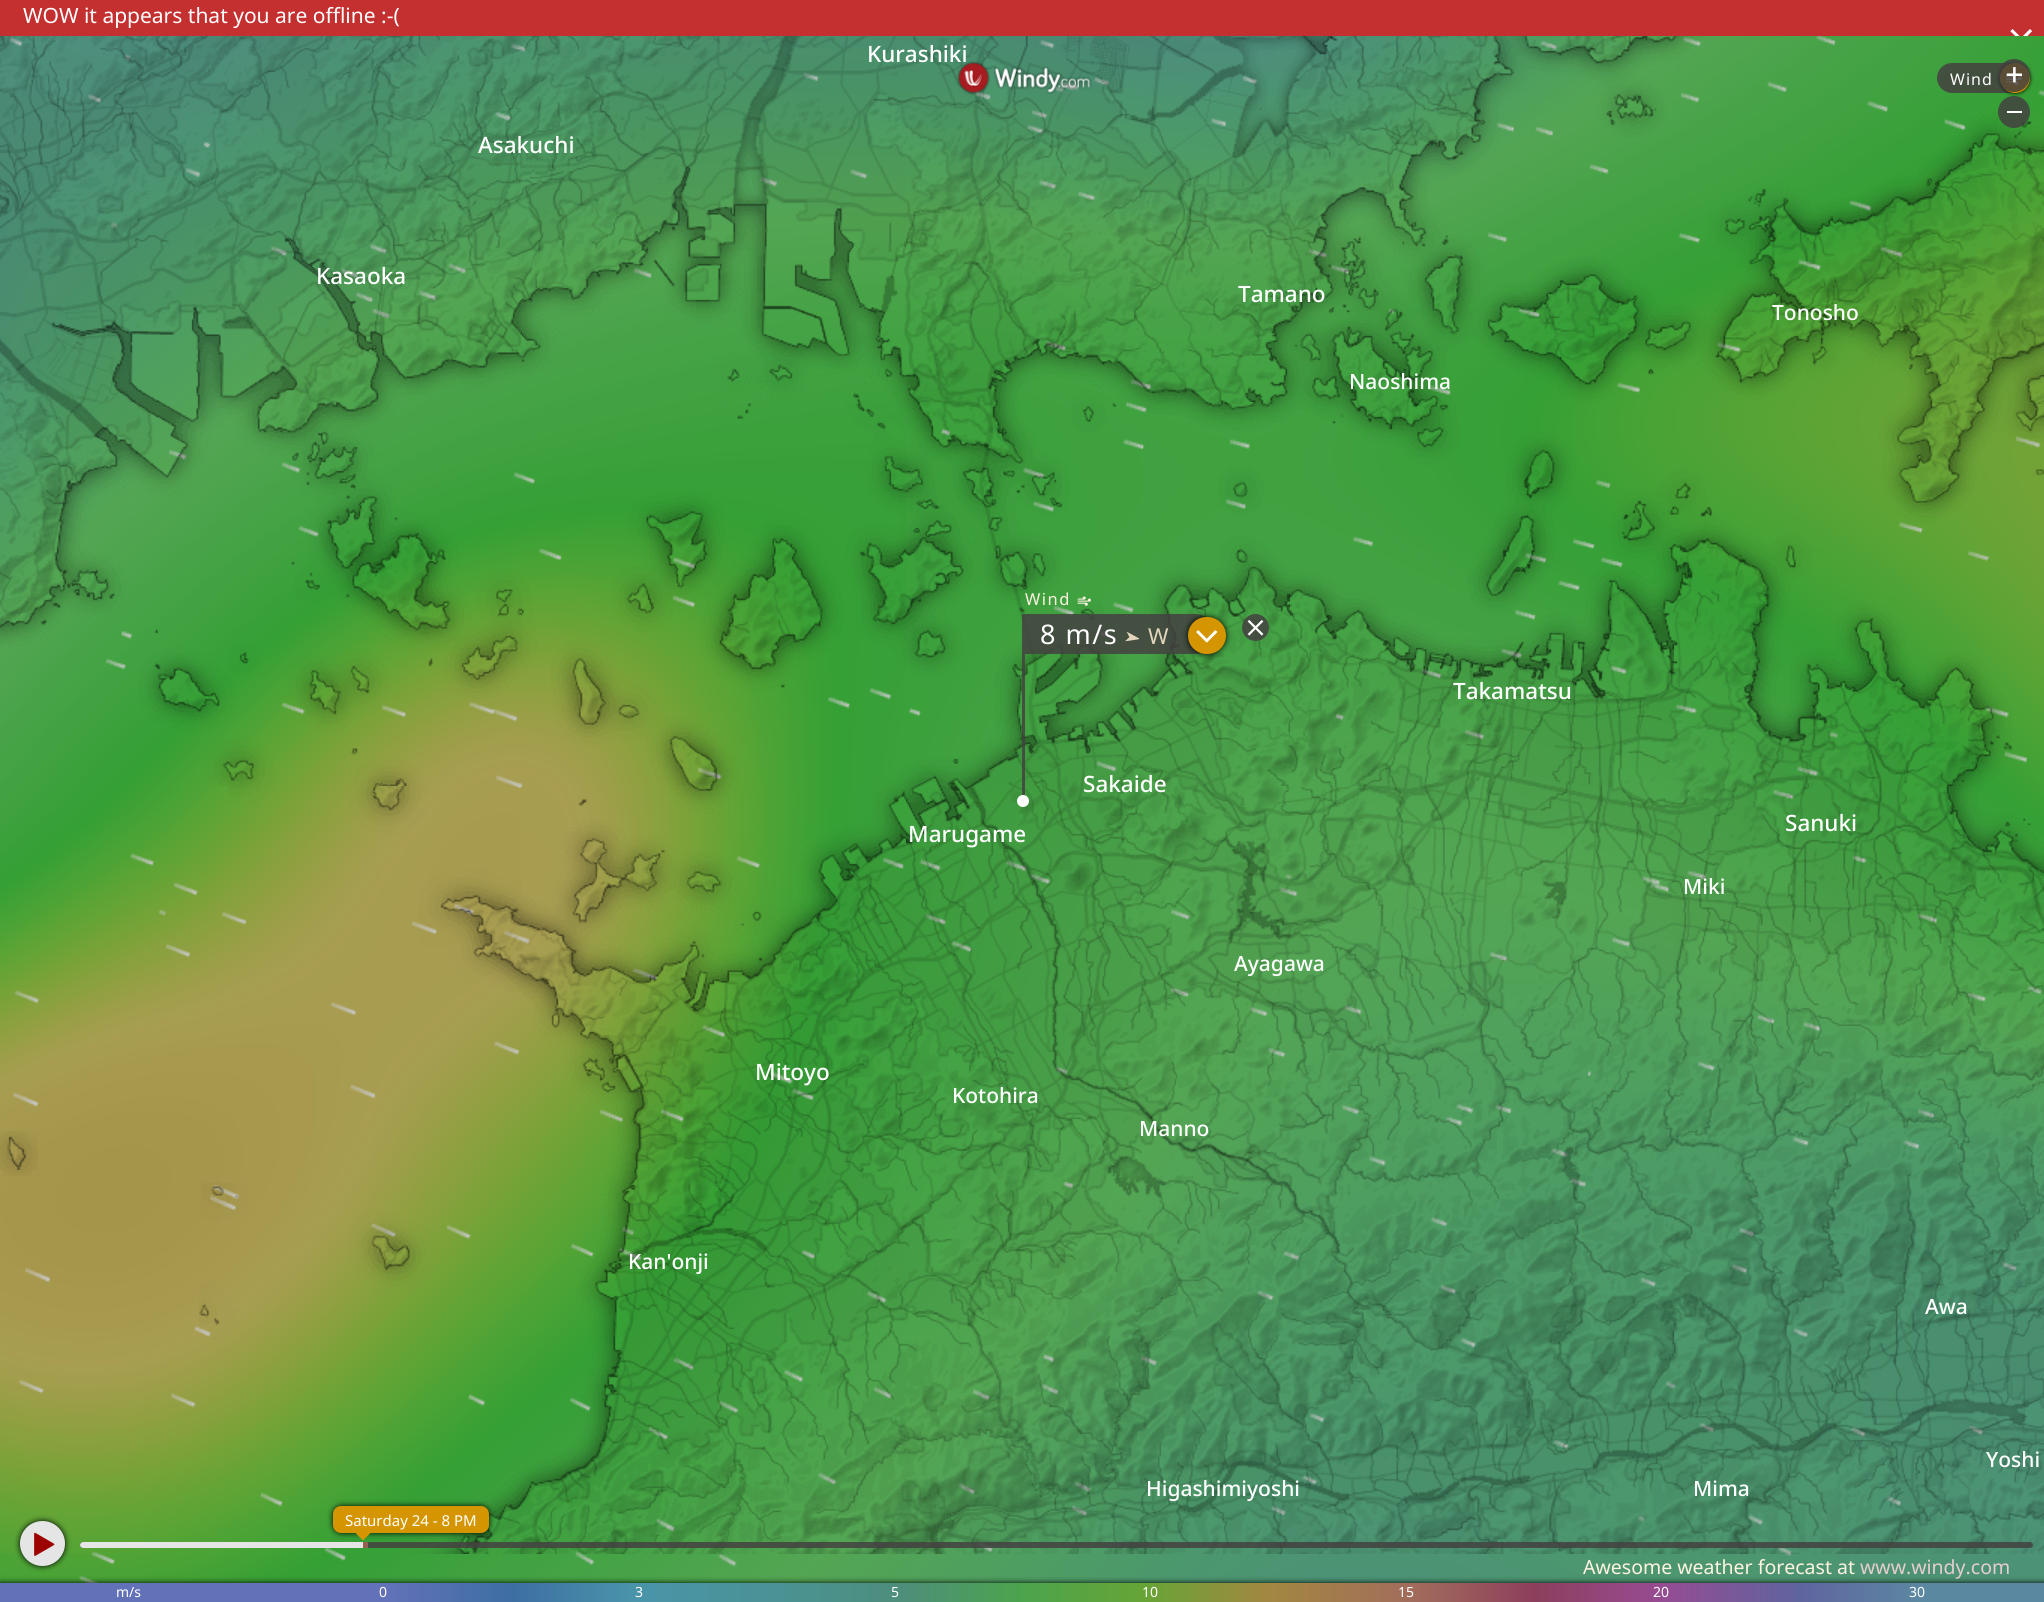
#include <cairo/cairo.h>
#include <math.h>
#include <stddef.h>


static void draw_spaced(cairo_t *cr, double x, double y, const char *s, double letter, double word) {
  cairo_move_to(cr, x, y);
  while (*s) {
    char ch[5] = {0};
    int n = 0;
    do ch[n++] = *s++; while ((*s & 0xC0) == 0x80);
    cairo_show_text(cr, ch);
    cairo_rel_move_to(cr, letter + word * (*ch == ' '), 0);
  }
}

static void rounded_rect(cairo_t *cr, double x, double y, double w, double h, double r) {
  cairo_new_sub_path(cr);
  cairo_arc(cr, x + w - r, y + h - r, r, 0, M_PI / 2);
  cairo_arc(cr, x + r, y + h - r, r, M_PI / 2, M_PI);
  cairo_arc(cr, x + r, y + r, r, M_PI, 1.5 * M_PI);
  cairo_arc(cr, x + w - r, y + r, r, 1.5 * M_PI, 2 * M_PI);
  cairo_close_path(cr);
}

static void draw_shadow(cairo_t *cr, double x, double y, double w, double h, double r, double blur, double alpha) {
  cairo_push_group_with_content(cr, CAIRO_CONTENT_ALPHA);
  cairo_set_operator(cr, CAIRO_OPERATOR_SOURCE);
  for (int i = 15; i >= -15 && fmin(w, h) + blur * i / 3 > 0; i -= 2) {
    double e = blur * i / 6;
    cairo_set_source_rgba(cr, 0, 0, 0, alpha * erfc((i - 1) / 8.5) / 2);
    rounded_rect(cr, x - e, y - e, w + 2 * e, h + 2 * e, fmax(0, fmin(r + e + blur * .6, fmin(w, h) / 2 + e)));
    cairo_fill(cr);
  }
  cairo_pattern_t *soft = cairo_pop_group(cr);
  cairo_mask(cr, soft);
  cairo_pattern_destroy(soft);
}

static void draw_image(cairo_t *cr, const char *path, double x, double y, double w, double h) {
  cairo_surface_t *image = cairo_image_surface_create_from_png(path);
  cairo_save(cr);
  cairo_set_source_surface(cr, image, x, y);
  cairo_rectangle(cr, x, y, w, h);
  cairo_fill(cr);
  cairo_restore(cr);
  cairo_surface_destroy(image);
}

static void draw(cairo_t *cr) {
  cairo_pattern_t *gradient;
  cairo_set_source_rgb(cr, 1, 1, 1);
  cairo_paint(cr);
  cairo_set_source_rgb(cr, 196 / 255.0, 47 / 255.0, 47 / 255.0);
  cairo_rectangle(cr, 0, 0, 2044, 36);
  cairo_fill(cr);
  draw_image(cr, "images/1.png", 2010, 29, 23, 7);
  draw_image(cr, "images/2.png", 0, 36, 138, 366);
  draw_image(cr, "images/3.png", 138, 36, 384, 366);
  draw_image(cr, "images/4.png", 522, 36, 384, 366);
  draw_image(cr, "images/5.png", 906, 36, 384, 366);
  draw_image(cr, "images/6.png", 1290, 36, 384, 366);
  draw_image(cr, "images/7.png", 1674, 36, 370, 366);
  draw_image(cr, "images/8.png", 0, 402, 138, 384);
  draw_image(cr, "images/9.png", 138, 402, 384, 384);
  draw_image(cr, "images/10.png", 522, 402, 384, 384);
  draw_image(cr, "images/11.png", 906, 402, 384, 384);
  draw_image(cr, "images/12.png", 1290, 402, 384, 384);
  draw_image(cr, "images/13.png", 1674, 402, 370, 384);
  draw_image(cr, "images/14.png", 0, 786, 138, 384);
  draw_image(cr, "images/15.png", 138, 786, 384, 384);
  draw_image(cr, "images/16.png", 522, 786, 384, 384);
  draw_image(cr, "images/17.png", 906, 786, 384, 384);
  draw_image(cr, "images/18.png", 1290, 786, 384, 384);
  draw_image(cr, "images/19.png", 1674, 786, 370, 384);
  draw_image(cr, "images/20.png", 0, 1170, 138, 384);
  draw_image(cr, "images/21.png", 138, 1170, 384, 384);
  draw_image(cr, "images/22.png", 522, 1170, 384, 384);
  draw_image(cr, "images/23.png", 906, 1170, 384, 384);
  draw_image(cr, "images/24.png", 1290, 1170, 384, 384);
  draw_image(cr, "images/25.png", 1674, 1170, 370, 384);
  draw_image(cr, "images/26.png", 0, 1554, 138, 29);
  draw_image(cr, "images/27.png", 138, 1554, 384, 29);
  draw_image(cr, "images/28.png", 522, 1554, 384, 29);
  draw_image(cr, "images/29.png", 906, 1554, 384, 29);
  draw_image(cr, "images/30.png", 1290, 1554, 384, 29);
  draw_image(cr, "images/31.png", 1674, 1554, 370, 29);
  draw_image(cr, "images/56.png", 8, 36, 2036, 1547);
  draw_image(cr, "images/32.png", 0, 36, 138, 366);
  draw_image(cr, "images/33.png", 138, 36, 384, 366);
  draw_image(cr, "images/34.png", 522, 36, 384, 366);
  draw_image(cr, "images/35.png", 906, 36, 384, 366);
  draw_image(cr, "images/36.png", 1290, 36, 384, 366);
  draw_image(cr, "images/37.png", 1674, 36, 370, 366);
  draw_image(cr, "images/38.png", 0, 402, 138, 249);
  draw_image(cr, "images/39.png", 138, 402, 384, 384);
  draw_image(cr, "images/40.png", 522, 402, 384, 384);
  draw_image(cr, "images/41.png", 906, 402, 384, 384);
  draw_image(cr, "images/42.png", 1290, 402, 384, 384);
  draw_image(cr, "images/43.png", 1674, 402, 370, 384);
  draw_image(cr, "images/44.png", 0, 1131, 38, 39);
  draw_image(cr, "images/45.png", 228, 786, 294, 206);
  draw_image(cr, "images/46.png", 522, 786, 384, 384);
  draw_image(cr, "images/47.png", 906, 786, 384, 384);
  draw_image(cr, "images/48.png", 1290, 786, 384, 384);
  draw_image(cr, "images/49.png", 1674, 786, 370, 384);
  draw_image(cr, "images/50.png", 3, 1170, 29, 6);
  draw_image(cr, "images/51.png", 199, 1183, 323, 371);
  draw_image(cr, "images/52.png", 522, 1170, 384, 384);
  draw_image(cr, "images/53.png", 906, 1170, 384, 384);
  draw_image(cr, "images/54.png", 1290, 1170, 384, 384);
  draw_image(cr, "images/55.png", 1674, 1170, 370, 384);
  cairo_set_source_rgba(cr, 68 / 255.0, 65 / 255.0, 65 / 255.0, 0.84);
  cairo_rectangle(cr, 1022, 614, 3, 187);
  cairo_fill(cr);
  cairo_set_source_rgb(cr, 1, 1, 1);
  cairo_arc(cr, 1023, 801, 6, 0, 2 * M_PI);
  cairo_fill(cr);
  cairo_set_source_rgba(cr, 68 / 255.0, 65 / 255.0, 65 / 255.0, 0.84);
  cairo_new_path(cr);
  cairo_move_to(cr, 1025, 614);
  cairo_line_to(cr, 1195, 614);
  cairo_curve_to(cr, 1206, 614, 1215, 623, 1215, 634);
  cairo_curve_to(cr, 1215, 645, 1206, 654, 1195, 654);
  cairo_line_to(cr, 1025, 654);
  cairo_close_path(cr);
  cairo_fill(cr);
  draw_image(cr, "images/57.png", 1077, 596, 14, 10);
  draw_image(cr, "images/58.png", 1125, 631, 15, 11);
  cairo_set_source_rgb(cr, 0, 0, 0);
  draw_shadow(cr, 1188, 617, 38, 37, 18.5, 3, 1);
  cairo_set_source_rgb(cr, 212 / 255.0, 149 / 255.0, 0);
  rounded_rect(cr, 1188, 617, 38, 37, 18.5);
  cairo_fill(cr);
  draw_image(cr, "images/59.png", 1196, 630, 22, 13);
  cairo_set_source_rgba(cr, 68 / 255.0, 65 / 255.0, 65 / 255.0, 0.84);
  cairo_arc(cr, 1255.5, 627.5, 13.5, 0, 2 * M_PI);
  cairo_fill(cr);
  draw_image(cr, "images/60.png", 1247, 620, 17, 16);
  draw_image(cr, "images/62.png", 993, 66, 99, 28);
  rounded_rect(cr, 1937, 63, 93, 30, 15);
  cairo_fill(cr);
  cairo_set_source_rgb(cr, 0, 0, 0);
  draw_shadow(cr, 2000, 63, 30, 30, 15, 2, 1);
  cairo_set_source_rgb(cr, 212 / 255.0, 149 / 255.0, 0);
  cairo_arc(cr, 2015, 78, 15, 0, 2 * M_PI);
  cairo_fill(cr);
  draw_image(cr, "images/63.png", 2005, 73, 17, 12);
  cairo_set_source_rgba(cr, 68 / 255.0, 65 / 255.0, 65 / 255.0, 0.84);
  rounded_rect(cr, 1998, 59, 32, 33, 16);
  cairo_fill(cr);
  draw_image(cr, "images/64.png", 2006, 67, 17, 16);
  cairo_arc(cr, 2014, 112, 16, 0, 2 * M_PI);
  cairo_fill(cr);
  cairo_set_source_rgb(cr, 1, 1, 1);
  cairo_rectangle(cr, 2007, 111, 15, 2);
  cairo_fill(cr);
  cairo_set_source_rgb(cr, 0, 0, 0);
  draw_shadow(cr, 20, 1521, 45, 45, 22.5, 3, 1);
  cairo_set_source_rgb(cr, 229 / 255.0, 229 / 255.0, 229 / 255.0);
  cairo_arc(cr, 42.5, 1543.5, 22.5, 0, 2 * M_PI);
  cairo_fill(cr);
  draw_image(cr, "images/65.png", 34, 1532, 21, 24);
  cairo_set_source_rgb(cr, 0, 0, 0);
  draw_shadow(cr, 333, 1506, 156, 27, 8, 3, 1);
  cairo_set_source_rgb(cr, 212 / 255.0, 149 / 255.0, 0);
  rounded_rect(cr, 333, 1506, 156, 27, 8);
  cairo_fill(cr);
  cairo_new_path(cr);
  cairo_move_to(cr, 355.5, 1533);
  cairo_line_to(cr, 370.5, 1533);
  cairo_line_to(cr, 363, 1540.5);
  cairo_close_path(cr);
  cairo_fill(cr);
  cairo_set_source_rgba(cr, 68 / 255.0, 65 / 255.0, 65 / 255.0, 0.84);
  rounded_rect(cr, 80, 1542, 1953, 6, 3);
  cairo_fill(cr);
  cairo_set_source_rgb(cr, 229 / 255.0, 229 / 255.0, 229 / 255.0);
  cairo_new_path(cr);
  cairo_move_to(cr, 83, 1542);
  cairo_line_to(cr, 363, 1542);
  cairo_line_to(cr, 363, 1548);
  cairo_line_to(cr, 83, 1548);
  cairo_curve_to(cr, 81.5, 1548, 80, 1546.5, 80, 1545);
  cairo_curve_to(cr, 80, 1543.5, 81.5, 1542, 83, 1542);
  cairo_close_path(cr);
  cairo_fill(cr);
  cairo_set_source_rgb(cr, 148 / 255.0, 96 / 255.0, 81 / 255.0);
  cairo_rectangle(cr, 363, 1542, 5, 6);
  cairo_fill(cr);
  cairo_set_source_rgb(cr, 0, 0, 0);
  draw_shadow(cr, 0, 1583, 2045, 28, 0, 3, 1);
  gradient = cairo_pattern_create_linear(0, 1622, 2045, 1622);
  cairo_pattern_add_color_stop_rgba(gradient, 0, 98 / 255.0, 113 / 255.0, 184 / 255.0, 1);
  cairo_pattern_add_color_stop_rgba(gradient, 0.19, 98 / 255.0, 113 / 255.0, 184 / 255.0, 1);
  cairo_pattern_add_color_stop_rgba(gradient, 0.25, 61 / 255.0, 110 / 255.0, 163 / 255.0, 1);
  cairo_pattern_add_color_stop_rgba(gradient, 0.31, 74 / 255.0, 148 / 255.0, 170 / 255.0, 1);
  cairo_pattern_add_color_stop_rgba(gradient, 0.38, 74 / 255.0, 146 / 255.0, 148 / 255.0, 1);
  cairo_pattern_add_color_stop_rgba(gradient, 0.44, 77 / 255.0, 142 / 255.0, 124 / 255.0, 1);
  cairo_pattern_add_color_stop_rgba(gradient, 0.5, 76 / 255.0, 164 / 255.0, 76 / 255.0, 1);
  cairo_pattern_add_color_stop_rgba(gradient, 0.56, 103 / 255.0, 164 / 255.0, 54 / 255.0, 1);
  cairo_pattern_add_color_stop_rgba(gradient, 0.62, 162 / 255.0, 135 / 255.0, 64 / 255.0, 1);
  cairo_pattern_add_color_stop_rgba(gradient, 0.69, 162 / 255.0, 109 / 255.0, 92 / 255.0, 1);
  cairo_pattern_add_color_stop_rgba(gradient, 0.75, 141 / 255.0, 63 / 255.0, 92 / 255.0, 1);
  cairo_pattern_add_color_stop_rgba(gradient, 0.81, 151 / 255.0, 75 / 255.0, 145 / 255.0, 1);
  cairo_pattern_add_color_stop_rgba(gradient, 0.88, 95 / 255.0, 100 / 255.0, 160 / 255.0, 1);
  cairo_pattern_add_color_stop_rgba(gradient, 0.94, 91 / 255.0, 136 / 255.0, 161 / 255.0, 1);
  cairo_pattern_add_color_stop_rgba(gradient, 1, 91 / 255.0, 136 / 255.0, 161 / 255.0, 1);
  cairo_set_source(cr, gradient);
  cairo_pattern_destroy(gradient);
  cairo_rectangle(cr, 0, 1583, 2044, 19);
  cairo_fill(cr);
  cairo_select_font_face(cr, "Noto Sans", CAIRO_FONT_SLANT_NORMAL, CAIRO_FONT_WEIGHT_NORMAL);
  cairo_set_font_size(cr, 21);
  cairo_set_source_rgb(cr, 1, 1, 1);
  cairo_move_to(cr, 23, 23);
  cairo_show_text(cr, "WOW it appears that you are offline :-(");
  cairo_select_font_face(cr, "Noto Sans Medium", CAIRO_FONT_SLANT_NORMAL, CAIRO_FONT_WEIGHT_NORMAL);
  cairo_set_font_size(cr, 22.5);
  cairo_move_to(cr, 478, 153);
  cairo_show_text(cr, "Asakuchi");
  cairo_move_to(cr, 867, 62);
  cairo_show_text(cr, "Kurashiki");
  cairo_move_to(cr, 1238, 302);
  cairo_show_text(cr, "Tamano");
  cairo_move_to(cr, 316, 284);
  cairo_show_text(cr, "Kasaoka");
  cairo_set_font_size(cr, 21);
  cairo_move_to(cr, 1772, 320);
  cairo_show_text(cr, "Tonosho");
  cairo_move_to(cr, 1349, 389);
  cairo_show_text(cr, "Naoshima");
  cairo_set_font_size(cr, 22.5);
  cairo_move_to(cr, 1453, 699);
  cairo_show_text(cr, "Takamatsu");
  cairo_move_to(cr, 1083, 792);
  cairo_show_text(cr, "Sakaide");
  cairo_move_to(cr, 755, 1080);
  cairo_show_text(cr, "Mitoyo");
  cairo_move_to(cr, 908, 842);
  cairo_show_text(cr, "Marugame");
  cairo_set_font_size(cr, 21);
  cairo_move_to(cr, 1234, 971);
  cairo_show_text(cr, "Ayagawa");
  cairo_move_to(cr, 952, 1103);
  cairo_show_text(cr, "Kotohira");
  cairo_move_to(cr, 1139, 1136);
  cairo_show_text(cr, "Manno");
  cairo_set_font_size(cr, 22.5);
  cairo_move_to(cr, 1785, 831);
  cairo_show_text(cr, "Sanuki");
  cairo_set_font_size(cr, 21);
  cairo_move_to(cr, 1683, 894);
  cairo_show_text(cr, "Miki");
  cairo_move_to(cr, 628, 1269);
  cairo_show_text(cr, "Kan'onji");
  cairo_move_to(cr, 1146, 1496);
  cairo_show_text(cr, "Higashimiyoshi");
  cairo_move_to(cr, 1925, 1314);
  cairo_show_text(cr, "Awa");
  cairo_move_to(cr, 1986, 1467);
  cairo_show_text(cr, "Yoshi");
  cairo_move_to(cr, 1693, 1496);
  cairo_show_text(cr, "Mima");
  cairo_select_font_face(cr, "Noto Sans", CAIRO_FONT_SLANT_NORMAL, CAIRO_FONT_WEIGHT_NORMAL);
  cairo_set_font_size(cr, 16.5);
  cairo_set_source_rgb(cr, 1, 243 / 255.0, 225 / 255.0);
  draw_spaced(cr, 1025, 605, "Wind", 1.5, 0);
  cairo_set_font_size(cr, 27);
  cairo_set_source_rgb(cr, 1, 1, 1);
  draw_spaced(cr, 1040, 644, "8 m/s", 1.5, 0);
  cairo_set_font_size(cr, 22);
  cairo_set_source_rgb(cr, 228 / 255.0, 213 / 255.0, 189 / 255.0);
  draw_spaced(cr, 1148, 644, "W", 1.5, 0);
  draw_image(cr, "images/61.png", 957, 61, 34, 34);
  cairo_set_font_size(cr, 16);
  cairo_set_source_rgb(cr, 1, 1, 1);
  draw_spaced(cr, 1950, 85, "Wind", 1, 0);
  cairo_set_font_size(cr, 15);
  cairo_move_to(cr, 345, 1526);
  cairo_show_text(cr, "Saturday 24 - 8 PM");
  cairo_set_font_size(cr, 19.5);
  cairo_set_source_rgb(cr, 1, 243 / 255.0, 225 / 255.0);
  cairo_move_to(cr, 1583, 1574);
  cairo_show_text(cr, "Awesome weather forecast at");
  cairo_set_source_rgb(cr, 230 / 255.0, 206 / 255.0, 206 / 255.0);
  cairo_move_to(cr, 1860, 1574);
  cairo_show_text(cr, "www.windy.com");
  cairo_set_font_size(cr, 14);
  cairo_set_source_rgb(cr, 1, 1, 1);
  cairo_move_to(cr, 116, 1597);
  cairo_show_text(cr, "m/s");
  cairo_move_to(cr, 379, 1597);
  cairo_show_text(cr, "0");
  cairo_move_to(cr, 635, 1597);
  cairo_show_text(cr, "3");
  cairo_move_to(cr, 891, 1597);
  cairo_show_text(cr, "5");
  cairo_move_to(cr, 1142, 1597);
  cairo_show_text(cr, "10");
  cairo_move_to(cr, 1398, 1597);
  cairo_show_text(cr, "15");
  cairo_move_to(cr, 1653, 1597);
  cairo_show_text(cr, "20");
  cairo_move_to(cr, 1909, 1597);
  cairo_show_text(cr, "30");
}

int main(void) {
  cairo_surface_t *surface = cairo_image_surface_create(CAIRO_FORMAT_RGB24, 2044, 1602);
  cairo_t *cr = cairo_create(surface);
  cairo_font_options_t *options = cairo_font_options_create();
  cairo_font_options_set_hint_metrics(options, CAIRO_HINT_METRICS_OFF);
  cairo_font_options_set_hint_style(options, CAIRO_HINT_STYLE_NONE);
  cairo_set_font_options(cr, options);
  cairo_set_miter_limit(cr, 4);
  draw(cr);
  cairo_surface_write_to_png(surface, "out.png");
  cairo_font_options_destroy(options);
  cairo_destroy(cr);
  cairo_surface_destroy(surface);
  return 0;
}
